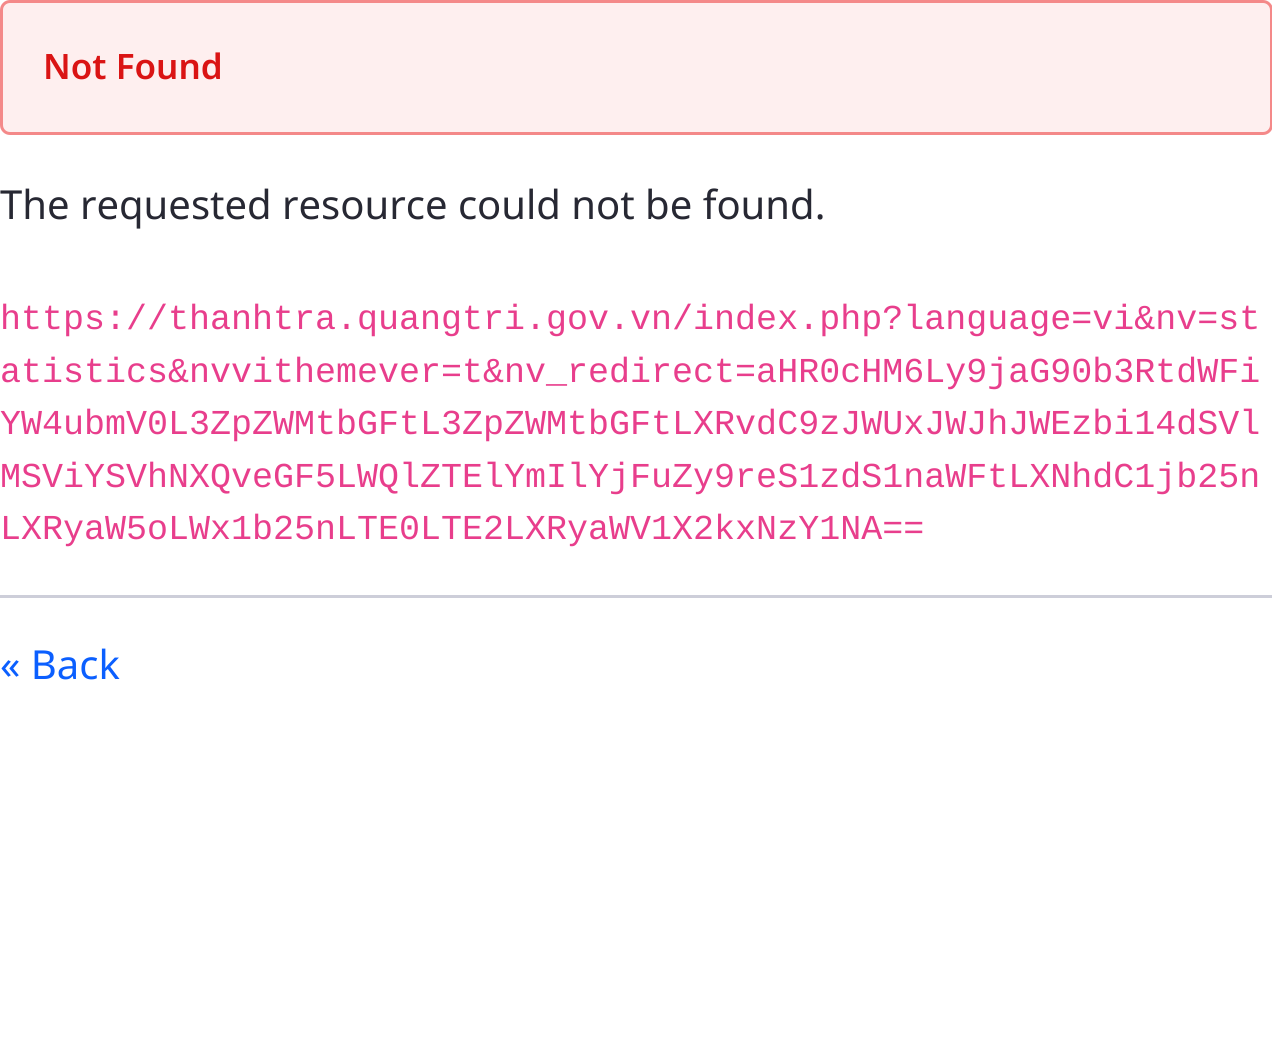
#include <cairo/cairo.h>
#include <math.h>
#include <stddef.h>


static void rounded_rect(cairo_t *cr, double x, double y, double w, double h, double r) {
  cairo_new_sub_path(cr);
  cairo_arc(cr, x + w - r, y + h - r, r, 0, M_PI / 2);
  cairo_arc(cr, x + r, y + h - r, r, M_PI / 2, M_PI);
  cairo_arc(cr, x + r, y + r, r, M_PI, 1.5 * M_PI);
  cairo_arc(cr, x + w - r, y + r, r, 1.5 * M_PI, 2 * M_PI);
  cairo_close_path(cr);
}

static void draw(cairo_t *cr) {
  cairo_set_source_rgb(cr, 1, 1, 1);
  cairo_paint(cr);
  cairo_set_source_rgb(cr, 254 / 255.0, 239 / 255.0, 239 / 255.0);
  rounded_rect(cr, 1.5, 1.5, 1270, 132, 8.5);
  cairo_fill_preserve(cr);
  cairo_set_source_rgb(cr, 244 / 255.0, 137 / 255.0, 137 / 255.0);
  cairo_set_line_width(cr, 3);
  cairo_stroke(cr);
  cairo_set_source_rgb(cr, 205 / 255.0, 206 / 255.0, 217 / 255.0);
  cairo_rectangle(cr, 0, 595, 1272, 3);
  cairo_fill(cr);
  cairo_select_font_face(cr, "Noto Sans SemiBold", CAIRO_FONT_SLANT_NORMAL, CAIRO_FONT_WEIGHT_NORMAL);
  cairo_set_font_size(cr, 35);
  cairo_set_source_rgb(cr, 218 / 255.0, 20 / 255.0, 20 / 255.0);
  cairo_move_to(cr, 43, 79);
  cairo_show_text(cr, "Not Found");
  cairo_select_font_face(cr, "Noto Sans", CAIRO_FONT_SLANT_NORMAL, CAIRO_FONT_WEIGHT_NORMAL);
  cairo_set_font_size(cr, 40);
  cairo_set_source_rgb(cr, 39 / 255.0, 40 / 255.0, 51 / 255.0);
  cairo_move_to(cr, 0, 219);
  cairo_show_text(cr, "The requested resource could not be found.");
  cairo_select_font_face(cr, "Liberation Mono", CAIRO_FONT_SLANT_NORMAL, CAIRO_FONT_WEIGHT_NORMAL);
  cairo_set_font_size(cr, 35);
  cairo_set_source_rgb(cr, 232 / 255.0, 62 / 255.0, 140 / 255.0);
  cairo_move_to(cr, 0, 329);
  cairo_show_text(cr, "https://thanhtra.quangtri.gov.vn/index.php?language=vi&nv=st");
  cairo_move_to(cr, 0, 382);
  cairo_show_text(cr, "atistics&nvvithemever=t&nv_redirect=aHR0cHM6Ly9jaG90b3RtdWFi");
  cairo_move_to(cr, 0, 434);
  cairo_show_text(cr, "YW4ubmV0L3ZpZWMtbGFtL3ZpZWMtbGFtLXRvdC9zJWUxJWJhJWEzbi14dSVl");
  cairo_move_to(cr, 0, 487);
  cairo_show_text(cr, "MSViYSVhNXQveGF5LWQlZTElYmIlYjFuZy9reS1zdS1naWFtLXNhdC1jb25n");
  cairo_move_to(cr, 0, 539);
  cairo_show_text(cr, "LXRyaW5oLWx1b25nLTE0LTE2LXRyaWV1X2kxNzY1NA==");
  cairo_select_font_face(cr, "Noto Sans", CAIRO_FONT_SLANT_NORMAL, CAIRO_FONT_WEIGHT_NORMAL);
  cairo_set_font_size(cr, 40);
  cairo_set_source_rgb(cr, 11 / 255.0, 95 / 255.0, 1);
  cairo_move_to(cr, 0, 679);
  cairo_show_text(cr, "« Back");
}

int main(void) {
  cairo_surface_t *surface = cairo_image_surface_create(CAIRO_FORMAT_RGB24, 1272, 1050);
  cairo_t *cr = cairo_create(surface);
  cairo_font_options_t *options = cairo_font_options_create();
  cairo_font_options_set_hint_metrics(options, CAIRO_HINT_METRICS_OFF);
  cairo_font_options_set_hint_style(options, CAIRO_HINT_STYLE_NONE);
  cairo_set_font_options(cr, options);
  cairo_set_miter_limit(cr, 4);
  draw(cr);
  cairo_surface_write_to_png(surface, "out.png");
  cairo_font_options_destroy(options);
  cairo_destroy(cr);
  cairo_surface_destroy(surface);
  return 0;
}
